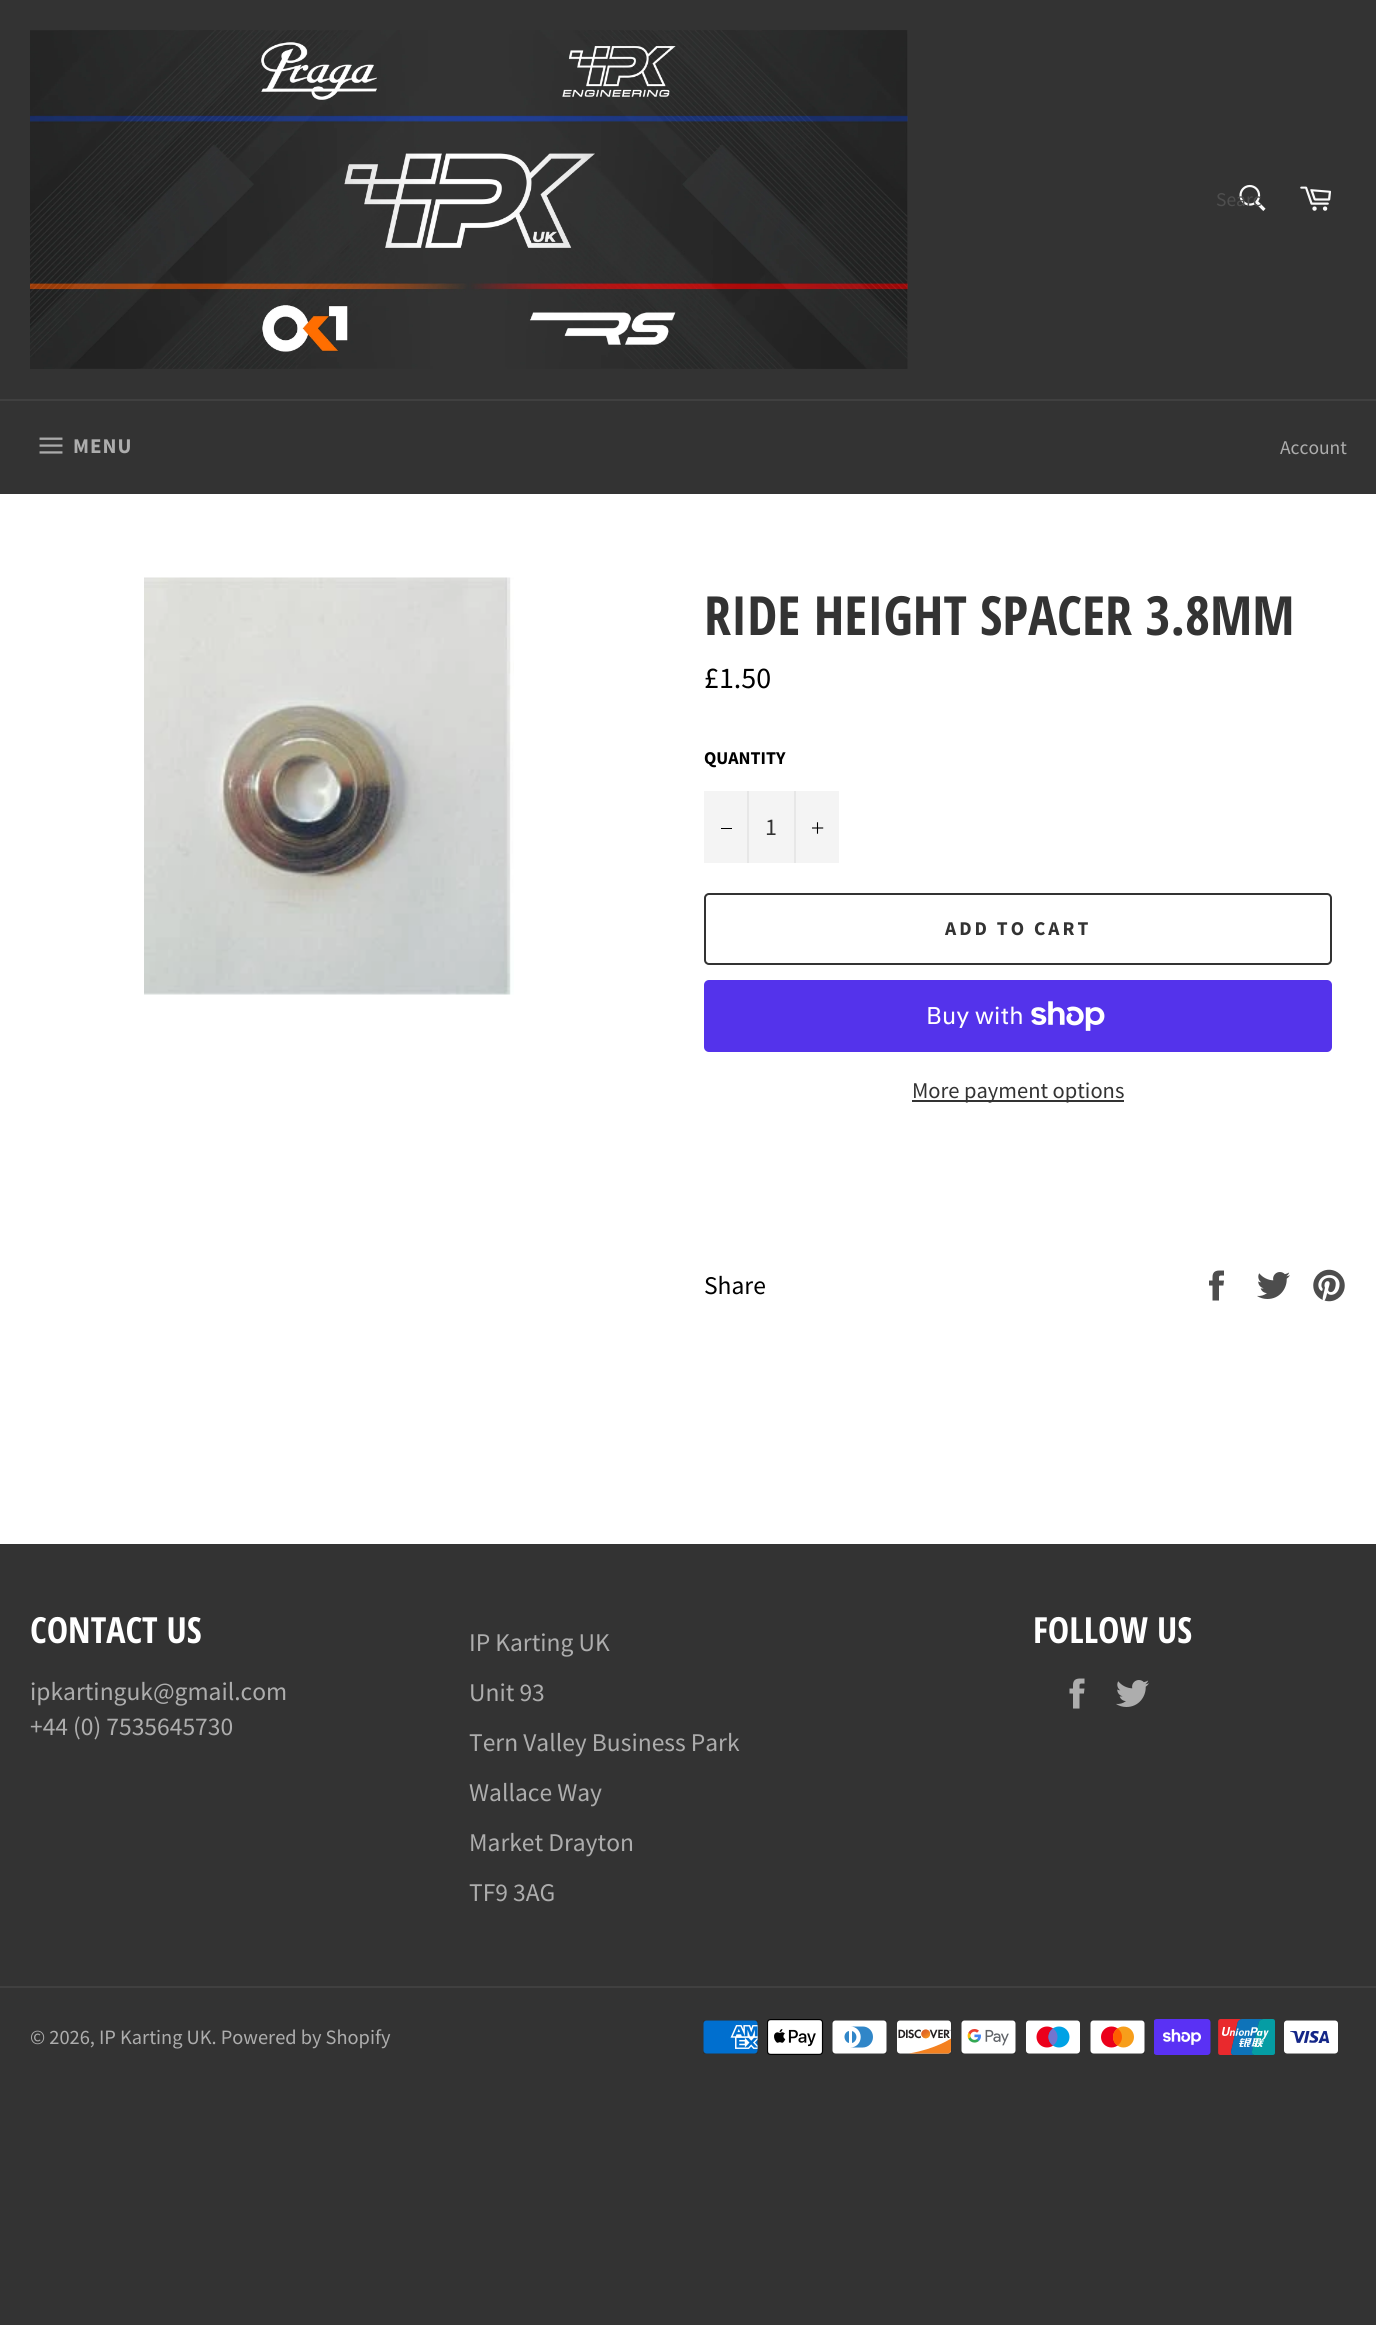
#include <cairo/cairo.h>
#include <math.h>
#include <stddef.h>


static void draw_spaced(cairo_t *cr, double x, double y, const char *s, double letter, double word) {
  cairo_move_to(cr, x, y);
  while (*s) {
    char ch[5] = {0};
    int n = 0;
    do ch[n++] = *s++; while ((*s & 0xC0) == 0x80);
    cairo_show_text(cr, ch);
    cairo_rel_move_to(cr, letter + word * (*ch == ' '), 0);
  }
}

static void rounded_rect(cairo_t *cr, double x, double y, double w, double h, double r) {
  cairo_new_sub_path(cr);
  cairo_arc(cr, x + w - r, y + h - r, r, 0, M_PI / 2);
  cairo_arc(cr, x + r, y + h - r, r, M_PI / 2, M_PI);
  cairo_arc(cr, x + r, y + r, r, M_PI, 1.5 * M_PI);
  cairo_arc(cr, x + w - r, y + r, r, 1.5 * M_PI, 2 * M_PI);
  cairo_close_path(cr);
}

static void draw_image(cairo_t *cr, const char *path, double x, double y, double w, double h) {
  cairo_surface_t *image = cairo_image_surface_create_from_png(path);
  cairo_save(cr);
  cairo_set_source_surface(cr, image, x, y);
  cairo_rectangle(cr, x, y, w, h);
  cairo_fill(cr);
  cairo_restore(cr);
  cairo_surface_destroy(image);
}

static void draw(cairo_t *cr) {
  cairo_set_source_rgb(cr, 51 / 255.0, 51 / 255.0, 51 / 255.0);
  cairo_paint(cr);
  cairo_set_source_rgb(cr, 1, 1, 1);
  cairo_rectangle(cr, 0, 494, 1376, 1050);
  cairo_fill(cr);
  draw_image(cr, "images/1.png", 30, 30, 878, 339);
  draw_image(cr, "images/2.png", 1239, 184, 27, 27);
  draw_image(cr, "images/3.png", 1300, 186, 31, 25);
  cairo_set_source_rgb(cr, 64 / 255.0, 64 / 255.0, 64 / 255.0);
  cairo_rectangle(cr, 0, 399, 1376, 2);
  cairo_fill(cr);
  draw_image(cr, "images/4.png", 39, 437, 24, 17);
  draw_image(cr, "images/5.png", 144, 577, 370, 418);
  cairo_set_source_rgb(cr, 244 / 255.0, 244 / 255.0, 244 / 255.0);
  cairo_rectangle(cr, 704, 791, 135, 72);
  cairo_fill(cr);
  cairo_set_source_rgb(cr, 231 / 255.0, 231 / 255.0, 231 / 255.0);
  cairo_rectangle(cr, 747, 791, 2, 72);
  cairo_fill(cr);
  cairo_set_source_rgb(cr, 0, 0, 0);
  cairo_rectangle(cr, 721, 828, 11, 1);
  cairo_fill(cr);
  cairo_set_source_rgb(cr, 231 / 255.0, 231 / 255.0, 231 / 255.0);
  cairo_rectangle(cr, 794, 791, 2, 72);
  cairo_fill(cr);
  draw_image(cr, "images/6.png", 812, 822, 12, 12);
  rounded_rect(cr, 705, 894, 626, 70, 4);
  cairo_set_source_rgb(cr, 51 / 255.0, 51 / 255.0, 51 / 255.0);
  cairo_stroke(cr);
  cairo_set_source_rgb(cr, 84 / 255.0, 51 / 255.0, 235 / 255.0);
  rounded_rect(cr, 704, 980, 628, 72, 5);
  cairo_fill(cr);
  draw_image(cr, "images/7.png", 1031, 1001, 74, 30);
  cairo_set_source_rgb(cr, 51 / 255.0, 51 / 255.0, 51 / 255.0);
  cairo_rectangle(cr, 912, 1100, 212, 2);
  cairo_fill(cr);
  draw_image(cr, "images/8.png", 1209, 1270, 15, 31);
  draw_image(cr, "images/9.png", 1257, 1272, 33, 27);
  draw_image(cr, "images/10.png", 1313, 1269, 32, 33);
  draw_image(cr, "images/11.png", 1069, 1678, 16, 31);
  draw_image(cr, "images/12.png", 1116, 1680, 33, 27);
  cairo_set_source_rgb(cr, 64 / 255.0, 64 / 255.0, 64 / 255.0);
  cairo_rectangle(cr, 0, 1986, 1376, 2);
  cairo_fill(cr);
  draw_image(cr, "images/13.png", 703, 2020, 55, 34);
  draw_image(cr, "images/14.png", 767, 2019, 57, 36);
  draw_image(cr, "images/15.png", 832, 2020, 55, 34);
  draw_image(cr, "images/16.png", 897, 2020, 55, 34);
  draw_image(cr, "images/17.png", 961, 2020, 55, 34);
  draw_image(cr, "images/18.png", 1026, 2020, 54, 34);
  draw_image(cr, "images/19.png", 1090, 2020, 55, 34);
  draw_image(cr, "images/20.png", 1154, 2019, 57, 36);
  draw_image(cr, "images/21.png", 1218, 2019, 57, 36);
  draw_image(cr, "images/22.png", 1284, 2020, 54, 34);
  cairo_select_font_face(cr, "Source Sans Pro", CAIRO_FONT_SLANT_NORMAL, CAIRO_FONT_WEIGHT_NORMAL);
  cairo_set_font_size(cr, 19.5);
  cairo_set_source_rgb(cr, 78 / 255.0, 78 / 255.0, 78 / 255.0);
  cairo_move_to(cr, 1216, 206);
  cairo_show_text(cr, "Searc");
  cairo_select_font_face(cr, "Source Sans Pro", CAIRO_FONT_SLANT_NORMAL, CAIRO_FONT_WEIGHT_BOLD);
  cairo_set_font_size(cr, 21);
  cairo_set_source_rgb(cr, 173 / 255.0, 173 / 255.0, 173 / 255.0);
  draw_spaced(cr, 73, 453, "MENU", 1, 0);
  cairo_select_font_face(cr, "Source Sans Pro", CAIRO_FONT_SLANT_NORMAL, CAIRO_FONT_WEIGHT_NORMAL);
  cairo_set_font_size(cr, 19.5);
  cairo_move_to(cr, 1280, 454);
  cairo_show_text(cr, "Account");
  cairo_select_font_face(cr, "Open Sans Condensed", CAIRO_FONT_SLANT_NORMAL, CAIRO_FONT_WEIGHT_BOLD);
  cairo_set_font_size(cr, 54);
  cairo_set_source_rgb(cr, 51 / 255.0, 51 / 255.0, 51 / 255.0);
  cairo_move_to(cr, 704, 635);
  cairo_show_text(cr, "RIDE HEIGHT SPACER 3.8MM");
  cairo_select_font_face(cr, "Source Sans Pro", CAIRO_FONT_SLANT_NORMAL, CAIRO_FONT_WEIGHT_NORMAL);
  cairo_set_font_size(cr, 30);
  cairo_set_source_rgb(cr, 0, 0, 0);
  cairo_move_to(cr, 704, 688);
  cairo_show_text(cr, "£1.50");
  cairo_select_font_face(cr, "Source Sans Pro", CAIRO_FONT_SLANT_NORMAL, CAIRO_FONT_WEIGHT_BOLD);
  cairo_set_font_size(cr, 18);
  cairo_move_to(cr, 704, 764);
  cairo_show_text(cr, "QUANTITY");
  cairo_select_font_face(cr, "Source Sans Pro", CAIRO_FONT_SLANT_NORMAL, CAIRO_FONT_WEIGHT_NORMAL);
  cairo_set_font_size(cr, 24);
  cairo_set_source_rgb(cr, 51 / 255.0, 51 / 255.0, 51 / 255.0);
  cairo_move_to(cr, 765, 835);
  cairo_show_text(cr, "1");
  cairo_select_font_face(cr, "Source Sans Pro", CAIRO_FONT_SLANT_NORMAL, CAIRO_FONT_WEIGHT_BOLD);
  cairo_set_font_size(cr, 19.5);
  draw_spaced(cr, 945, 935, "ADD TO CART", 3, 0);
  cairo_select_font_face(cr, "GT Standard", CAIRO_FONT_SLANT_NORMAL, CAIRO_FONT_WEIGHT_NORMAL);
  cairo_set_font_size(cr, 24);
  cairo_set_source_rgb(cr, 1, 1, 1);
  cairo_move_to(cr, 926, 1024);
  cairo_show_text(cr, "Buy with");
  cairo_select_font_face(cr, "Source Sans Pro", CAIRO_FONT_SLANT_NORMAL, CAIRO_FONT_WEIGHT_NORMAL);
  cairo_set_font_size(cr, 22.5);
  cairo_set_source_rgb(cr, 51 / 255.0, 51 / 255.0, 51 / 255.0);
  cairo_move_to(cr, 912, 1098);
  cairo_show_text(cr, "More payment options");
  cairo_set_font_size(cr, 25.5);
  cairo_set_source_rgb(cr, 0, 0, 0);
  cairo_move_to(cr, 704, 1294);
  cairo_show_text(cr, "Share");
  cairo_select_font_face(cr, "Open Sans Condensed", CAIRO_FONT_SLANT_NORMAL, CAIRO_FONT_WEIGHT_BOLD);
  cairo_set_font_size(cr, 36);
  cairo_set_source_rgb(cr, 1, 1, 1);
  cairo_move_to(cr, 30, 1643);
  cairo_show_text(cr, "CONTACT US");
  cairo_select_font_face(cr, "Source Sans Pro", CAIRO_FONT_SLANT_NORMAL, CAIRO_FONT_WEIGHT_NORMAL);
  cairo_set_font_size(cr, 25.5);
  cairo_set_source_rgb(cr, 173 / 255.0, 173 / 255.0, 173 / 255.0);
  cairo_move_to(cr, 30, 1700);
  cairo_show_text(cr, "ipkartinguk@gmail.com");
  cairo_move_to(cr, 30, 1735);
  cairo_show_text(cr, "+44 (0) 7535645730");
  cairo_select_font_face(cr, "Open Sans Condensed", CAIRO_FONT_SLANT_NORMAL, CAIRO_FONT_WEIGHT_BOLD);
  cairo_set_font_size(cr, 36);
  cairo_set_source_rgb(cr, 1, 1, 1);
  cairo_move_to(cr, 1033, 1643);
  cairo_show_text(cr, "FOLLOW US");
  cairo_select_font_face(cr, "Source Sans Pro", CAIRO_FONT_SLANT_NORMAL, CAIRO_FONT_WEIGHT_NORMAL);
  cairo_set_font_size(cr, 25.5);
  cairo_set_source_rgb(cr, 173 / 255.0, 173 / 255.0, 173 / 255.0);
  cairo_move_to(cr, 469, 1651);
  cairo_show_text(cr, "IP Karting UK");
  cairo_move_to(cr, 469, 1701);
  cairo_show_text(cr, "Unit 93");
  cairo_move_to(cr, 469, 1751);
  cairo_show_text(cr, "Tern Valley Business Park");
  cairo_move_to(cr, 469, 1801);
  cairo_show_text(cr, "Wallace Way");
  cairo_move_to(cr, 469, 1851);
  cairo_show_text(cr, "Market Drayton");
  cairo_move_to(cr, 469, 1901);
  cairo_show_text(cr, "TF9 3AG");
  cairo_set_font_size(cr, 20.4);
  cairo_move_to(cr, 30, 2044);
  cairo_show_text(cr, "© 2026, IP Karting UK. Powered by Shopify");
}

int main(void) {
  cairo_surface_t *surface = cairo_image_surface_create(CAIRO_FORMAT_RGB24, 1376, 2325);
  cairo_t *cr = cairo_create(surface);
  cairo_font_options_t *options = cairo_font_options_create();
  cairo_font_options_set_hint_metrics(options, CAIRO_HINT_METRICS_OFF);
  cairo_font_options_set_hint_style(options, CAIRO_HINT_STYLE_NONE);
  cairo_set_font_options(cr, options);
  cairo_set_miter_limit(cr, 4);
  draw(cr);
  cairo_surface_write_to_png(surface, "out.png");
  cairo_font_options_destroy(options);
  cairo_destroy(cr);
  cairo_surface_destroy(surface);
  return 0;
}
